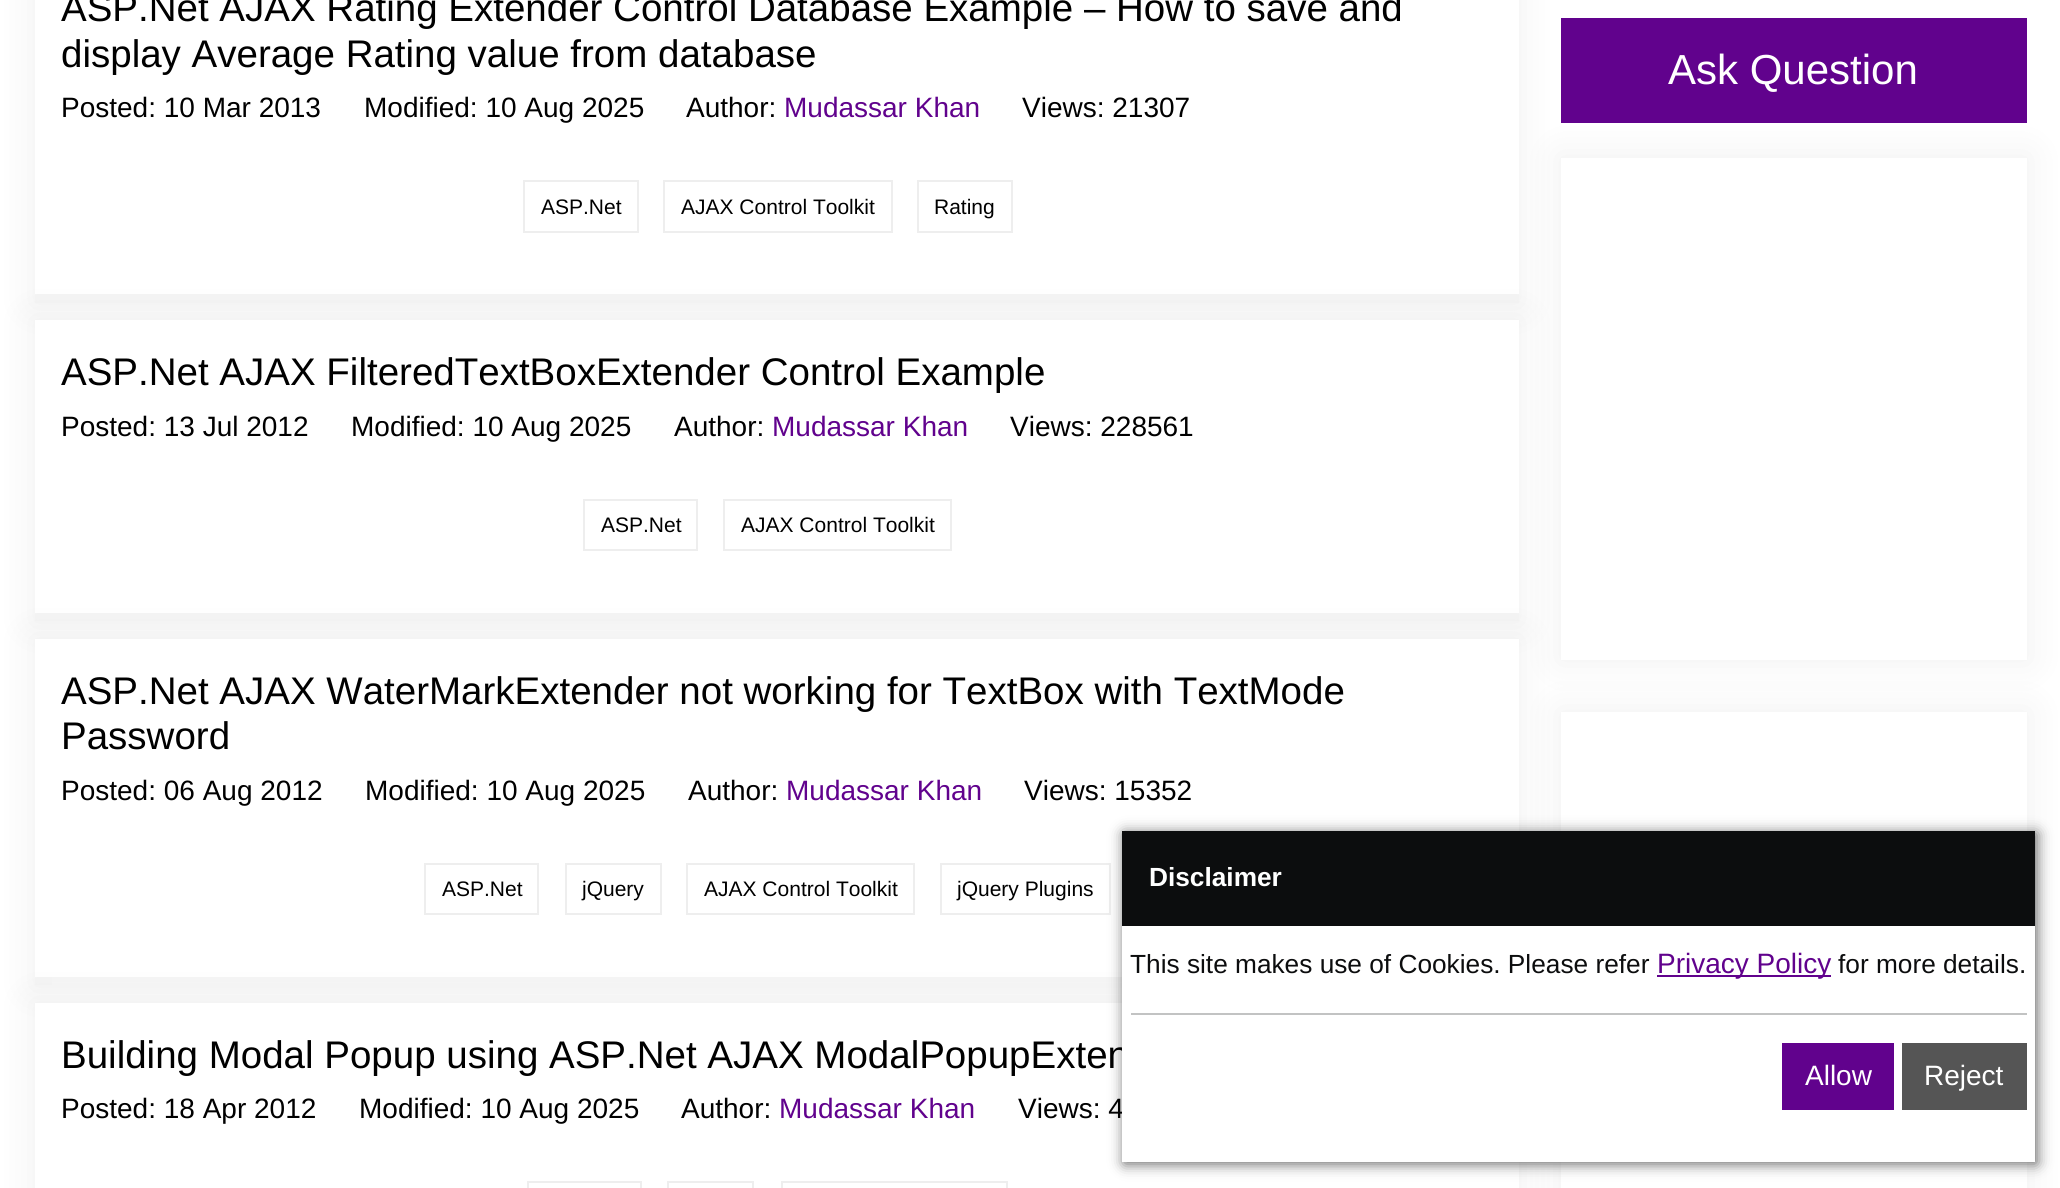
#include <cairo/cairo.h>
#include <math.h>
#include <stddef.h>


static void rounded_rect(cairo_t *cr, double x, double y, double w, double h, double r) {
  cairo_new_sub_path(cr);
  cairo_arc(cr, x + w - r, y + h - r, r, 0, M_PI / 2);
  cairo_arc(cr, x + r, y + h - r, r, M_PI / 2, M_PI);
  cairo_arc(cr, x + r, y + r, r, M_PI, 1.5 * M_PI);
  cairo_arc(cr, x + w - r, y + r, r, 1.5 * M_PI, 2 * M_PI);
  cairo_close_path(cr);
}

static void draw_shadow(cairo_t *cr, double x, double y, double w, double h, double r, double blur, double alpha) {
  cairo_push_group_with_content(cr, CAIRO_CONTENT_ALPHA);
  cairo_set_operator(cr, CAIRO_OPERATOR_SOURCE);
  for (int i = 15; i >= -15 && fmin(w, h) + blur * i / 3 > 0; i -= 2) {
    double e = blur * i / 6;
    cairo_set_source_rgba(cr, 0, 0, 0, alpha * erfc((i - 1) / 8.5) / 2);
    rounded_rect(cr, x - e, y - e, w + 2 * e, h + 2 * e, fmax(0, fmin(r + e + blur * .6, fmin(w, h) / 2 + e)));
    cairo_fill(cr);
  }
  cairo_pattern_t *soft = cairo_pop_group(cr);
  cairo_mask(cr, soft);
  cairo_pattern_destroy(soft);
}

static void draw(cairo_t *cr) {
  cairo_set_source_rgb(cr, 1, 1, 1);
  cairo_paint(cr);
  cairo_set_source_rgb(cr, 0, 0, 0);
  draw_shadow(cr, 30, -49, 1494, 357, 0, 17.5, 0.05);
  cairo_set_source_rgb(cr, 1, 1, 1);
  cairo_rectangle(cr, 35, 0, 1484, 294);
  cairo_fill(cr);
  cairo_set_source_rgb(cr, 245 / 255.0, 245 / 255.0, 245 / 255.0);
  cairo_rectangle(cr, 35, 294, 1484, 9);
  cairo_fill(cr);
  cairo_rectangle(cr, 524, 181, 114, 51);
  cairo_set_source_rgb(cr, 238 / 255.0, 238 / 255.0, 238 / 255.0);
  cairo_stroke(cr);
  cairo_rectangle(cr, 664, 181, 228, 51);
  cairo_stroke(cr);
  cairo_rectangle(cr, 918, 181, 94, 51);
  cairo_stroke(cr);
  cairo_set_source_rgb(cr, 0, 0, 0);
  draw_shadow(cr, 30, 315, 1494, 312, 0, 17.5, 0.05);
  cairo_set_source_rgb(cr, 1, 1, 1);
  cairo_rectangle(cr, 35, 320, 1484, 293);
  cairo_fill(cr);
  cairo_set_source_rgb(cr, 245 / 255.0, 245 / 255.0, 245 / 255.0);
  cairo_rectangle(cr, 35, 613, 1484, 8);
  cairo_fill(cr);
  cairo_rectangle(cr, 584, 500, 113, 50);
  cairo_set_source_rgb(cr, 238 / 255.0, 238 / 255.0, 238 / 255.0);
  cairo_stroke(cr);
  cairo_rectangle(cr, 724, 500, 227, 50);
  cairo_stroke(cr);
  cairo_set_source_rgb(cr, 0, 0, 0);
  draw_shadow(cr, 30, 634, 1494, 357, 0, 17.5, 0.05);
  cairo_set_source_rgb(cr, 1, 1, 1);
  cairo_rectangle(cr, 35, 639, 1484, 338);
  cairo_fill(cr);
  cairo_set_source_rgb(cr, 245 / 255.0, 245 / 255.0, 245 / 255.0);
  cairo_rectangle(cr, 35, 977, 17, 8);
  cairo_fill(cr);
  cairo_rectangle(cr, 425, 864, 113, 50);
  cairo_set_source_rgb(cr, 238 / 255.0, 238 / 255.0, 238 / 255.0);
  cairo_stroke(cr);
  cairo_rectangle(cr, 566, 864, 95, 50);
  cairo_stroke(cr);
  cairo_rectangle(cr, 687, 864, 227, 50);
  cairo_stroke(cr);
  cairo_rectangle(cr, 941, 864, 169, 50);
  cairo_stroke(cr);
  cairo_set_source_rgb(cr, 0, 0, 0);
  draw_shadow(cr, 30, 998, 1494, 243, 0, 17.5, 0.05);
  cairo_set_source_rgb(cr, 1, 1, 1);
  cairo_rectangle(cr, 35, 1003, 1484, 185);
  cairo_fill(cr);
  cairo_rectangle(cr, 528, 1182, 113, 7);
  cairo_set_source_rgb(cr, 238 / 255.0, 238 / 255.0, 238 / 255.0);
  cairo_stroke(cr);
  cairo_rectangle(cr, 668, 1182, 85, 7);
  cairo_stroke(cr);
  cairo_rectangle(cr, 782, 1182, 225, 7);
  cairo_stroke(cr);
  cairo_set_source_rgb(cr, 0, 0, 0);
  draw_shadow(cr, 1556, 152, 476, 513, 0, 17.5, 0.05);
  cairo_set_source_rgb(cr, 97 / 255.0, 2 / 255.0, 141 / 255.0);
  cairo_rectangle(cr, 1561, 18, 466, 105);
  cairo_fill(cr);
  cairo_set_source_rgb(cr, 1, 1, 1);
  cairo_rectangle(cr, 1561, 158, 466, 502);
  cairo_fill(cr);
  cairo_set_source_rgb(cr, 0, 0, 0);
  draw_shadow(cr, 1556, 707, 476, 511, 0, 17.5, 0.05);
  cairo_set_source_rgb(cr, 1, 1, 1);
  cairo_rectangle(cr, 1561, 712, 466, 476);
  cairo_fill(cr);
  cairo_set_source_rgb(cr, 102 / 255.0, 102 / 255.0, 102 / 255.0);
  draw_shadow(cr, 1124, 833, 913, 331, 0, 7, 1);
  cairo_set_source_rgb(cr, 12 / 255.0, 13 / 255.0, 14 / 255.0);
  cairo_rectangle(cr, 1122, 831, 913, 95);
  cairo_fill(cr);
  cairo_select_font_face(cr, "Liberation Sans", CAIRO_FONT_SLANT_NORMAL, CAIRO_FONT_WEIGHT_NORMAL);
  cairo_set_font_size(cr, 38.5);
  cairo_set_source_rgb(cr, 0, 0, 0);
  cairo_move_to(cr, 61, 21);
  cairo_show_text(cr, "ASP.Net AJAX Rating Extender Control Database Example – How to save and");
  cairo_move_to(cr, 61, 67);
  cairo_show_text(cr, "display Average Rating value from database");
  cairo_set_font_size(cr, 28);
  cairo_move_to(cr, 61, 117);
  cairo_show_text(cr, "Posted: 10 Mar 2013");
  cairo_move_to(cr, 364, 117);
  cairo_show_text(cr, "Modified: 10 Aug 2025");
  cairo_move_to(cr, 686, 117);
  cairo_show_text(cr, "Author:");
  cairo_set_source_rgb(cr, 97 / 255.0, 2 / 255.0, 141 / 255.0);
  cairo_move_to(cr, 784, 117);
  cairo_show_text(cr, "Mudassar Khan");
  cairo_set_source_rgb(cr, 0, 0, 0);
  cairo_move_to(cr, 1022, 117);
  cairo_show_text(cr, "Views: 21307");
  cairo_set_font_size(cr, 21);
  cairo_move_to(cr, 541, 214);
  cairo_show_text(cr, "ASP.Net");
  cairo_move_to(cr, 681, 214);
  cairo_show_text(cr, "AJAX Control Toolkit");
  cairo_move_to(cr, 934, 214);
  cairo_show_text(cr, "Rating");
  cairo_set_font_size(cr, 38.5);
  cairo_move_to(cr, 61, 385);
  cairo_show_text(cr, "ASP.Net AJAX FilteredTextBoxExtender Control Example");
  cairo_set_font_size(cr, 28);
  cairo_move_to(cr, 61, 436);
  cairo_show_text(cr, "Posted: 13 Jul 2012");
  cairo_move_to(cr, 351, 436);
  cairo_show_text(cr, "Modified: 10 Aug 2025");
  cairo_move_to(cr, 674, 436);
  cairo_show_text(cr, "Author:");
  cairo_set_source_rgb(cr, 97 / 255.0, 2 / 255.0, 141 / 255.0);
  cairo_move_to(cr, 772, 436);
  cairo_show_text(cr, "Mudassar Khan");
  cairo_set_source_rgb(cr, 0, 0, 0);
  cairo_move_to(cr, 1010, 436);
  cairo_show_text(cr, "Views: 228561");
  cairo_set_font_size(cr, 21);
  cairo_move_to(cr, 601, 532);
  cairo_show_text(cr, "ASP.Net");
  cairo_move_to(cr, 741, 532);
  cairo_show_text(cr, "AJAX Control Toolkit");
  cairo_set_font_size(cr, 38.5);
  cairo_move_to(cr, 61, 704);
  cairo_show_text(cr, "ASP.Net AJAX WaterMarkExtender not working for TextBox with TextMode");
  cairo_move_to(cr, 61, 749);
  cairo_show_text(cr, "Password");
  cairo_set_font_size(cr, 28);
  cairo_move_to(cr, 61, 800);
  cairo_show_text(cr, "Posted: 06 Aug 2012");
  cairo_move_to(cr, 365, 800);
  cairo_show_text(cr, "Modified: 10 Aug 2025");
  cairo_move_to(cr, 688, 800);
  cairo_show_text(cr, "Author:");
  cairo_set_source_rgb(cr, 97 / 255.0, 2 / 255.0, 141 / 255.0);
  cairo_move_to(cr, 786, 800);
  cairo_show_text(cr, "Mudassar Khan");
  cairo_set_source_rgb(cr, 0, 0, 0);
  cairo_move_to(cr, 1024, 800);
  cairo_show_text(cr, "Views: 15352");
  cairo_set_font_size(cr, 21);
  cairo_move_to(cr, 442, 896);
  cairo_show_text(cr, "ASP.Net");
  cairo_move_to(cr, 582, 896);
  cairo_show_text(cr, "jQuery");
  cairo_move_to(cr, 704, 896);
  cairo_show_text(cr, "AJAX Control Toolkit");
  cairo_move_to(cr, 957, 896);
  cairo_show_text(cr, "jQuery Plugins");
  cairo_set_font_size(cr, 38.5);
  cairo_move_to(cr, 61, 1068);
  cairo_show_text(cr, "Building Modal Popup using ASP.Net AJAX ModalPopupExten");
  cairo_set_font_size(cr, 28);
  cairo_move_to(cr, 61, 1118);
  cairo_show_text(cr, "Posted: 18 Apr 2012");
  cairo_move_to(cr, 359, 1118);
  cairo_show_text(cr, "Modified: 10 Aug 2025");
  cairo_move_to(cr, 681, 1118);
  cairo_show_text(cr, "Author:");
  cairo_set_source_rgb(cr, 97 / 255.0, 2 / 255.0, 141 / 255.0);
  cairo_move_to(cr, 779, 1118);
  cairo_show_text(cr, "Mudassar Khan");
  cairo_set_source_rgb(cr, 0, 0, 0);
  cairo_move_to(cr, 1018, 1118);
  cairo_show_text(cr, "Views: 4");
  cairo_set_font_size(cr, 42);
  cairo_set_source_rgb(cr, 1, 1, 1);
  cairo_move_to(cr, 1668, 84);
  cairo_show_text(cr, "Ask Question");
  cairo_rectangle(cr, 1122, 926, 913, 236);
  cairo_fill(cr);
  cairo_select_font_face(cr, "Liberation Sans", CAIRO_FONT_SLANT_NORMAL, CAIRO_FONT_WEIGHT_BOLD);
  cairo_set_font_size(cr, 26.25);
  cairo_move_to(cr, 1149, 886);
  cairo_show_text(cr, "Disclaimer");
  cairo_select_font_face(cr, "Liberation Sans", CAIRO_FONT_SLANT_NORMAL, CAIRO_FONT_WEIGHT_NORMAL);
  cairo_set_source_rgb(cr, 12 / 255.0, 13 / 255.0, 14 / 255.0);
  cairo_move_to(cr, 1130, 973);
  cairo_show_text(cr, "This site makes use of Cookies. Please refer");
  cairo_set_source_rgb(cr, 97 / 255.0, 2 / 255.0, 141 / 255.0);
  cairo_rectangle(cr, 1657, 975, 174, 2);
  cairo_fill(cr);
  cairo_set_font_size(cr, 28);
  cairo_move_to(cr, 1657, 973);
  cairo_show_text(cr, "Privacy Policy");
  cairo_set_font_size(cr, 26.25);
  cairo_set_source_rgb(cr, 12 / 255.0, 13 / 255.0, 14 / 255.0);
  cairo_move_to(cr, 1838, 973);
  cairo_show_text(cr, "for more details.");
  cairo_set_source_rgb(cr, 194 / 255.0, 195 / 255.0, 195 / 255.0);
  cairo_rectangle(cr, 1131, 1013, 896, 2);
  cairo_fill(cr);
  cairo_set_source_rgb(cr, 97 / 255.0, 2 / 255.0, 141 / 255.0);
  cairo_rectangle(cr, 1782, 1043, 112, 67);
  cairo_fill(cr);
  cairo_set_font_size(cr, 28);
  cairo_set_source_rgb(cr, 1, 1, 1);
  cairo_move_to(cr, 1805, 1085);
  cairo_show_text(cr, "Allow");
  cairo_set_source_rgb(cr, 85 / 255.0, 85 / 255.0, 85 / 255.0);
  cairo_rectangle(cr, 1902, 1043, 125, 67);
  cairo_fill(cr);
  cairo_set_source_rgb(cr, 1, 1, 1);
  cairo_move_to(cr, 1924, 1085);
  cairo_show_text(cr, "Reject");
}

int main(void) {
  cairo_surface_t *surface = cairo_image_surface_create(CAIRO_FORMAT_RGB24, 2060, 1188);
  cairo_t *cr = cairo_create(surface);
  cairo_font_options_t *options = cairo_font_options_create();
  cairo_font_options_set_hint_metrics(options, CAIRO_HINT_METRICS_OFF);
  cairo_font_options_set_hint_style(options, CAIRO_HINT_STYLE_NONE);
  cairo_set_font_options(cr, options);
  cairo_set_miter_limit(cr, 4);
  draw(cr);
  cairo_surface_write_to_png(surface, "out.png");
  cairo_font_options_destroy(options);
  cairo_destroy(cr);
  cairo_surface_destroy(surface);
  return 0;
}
